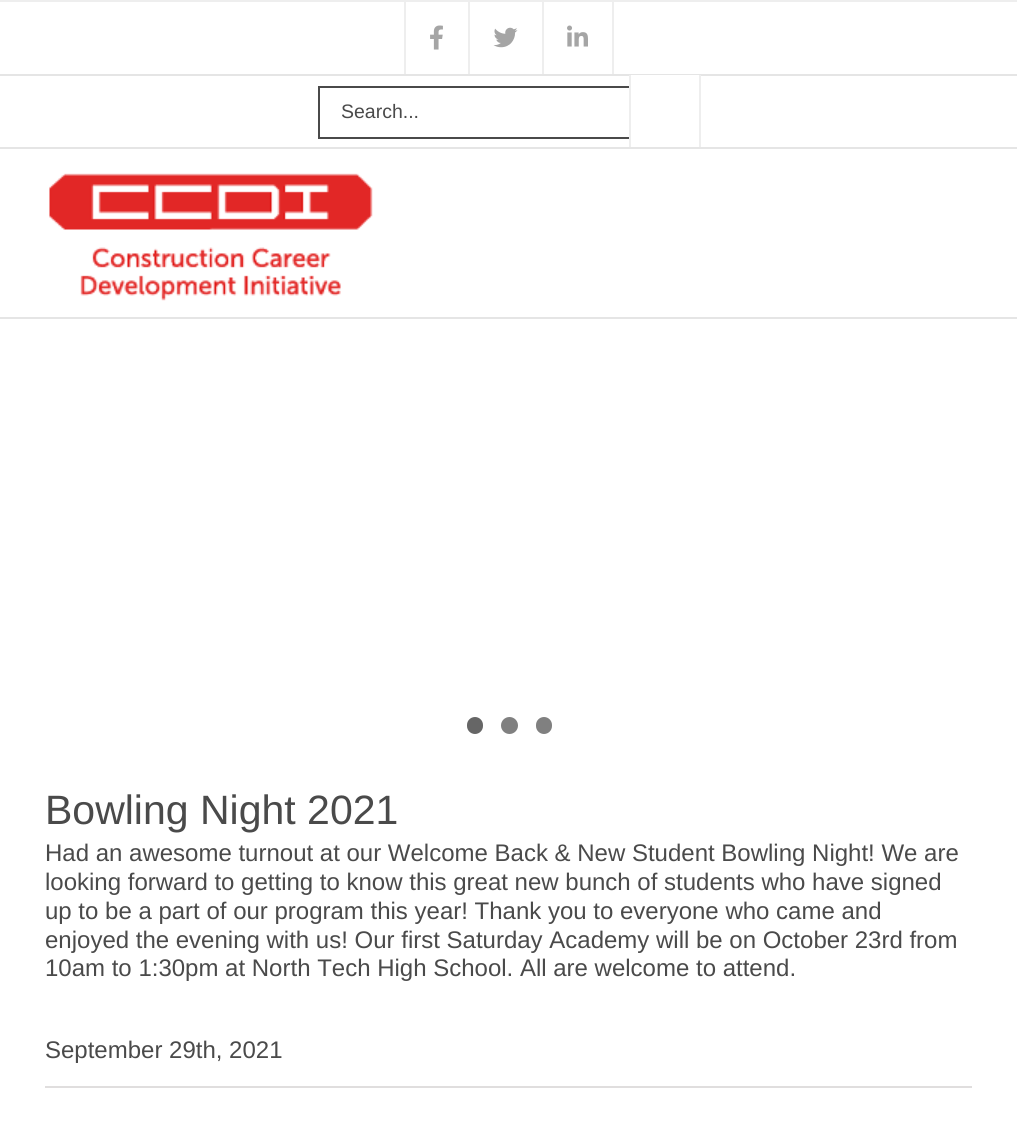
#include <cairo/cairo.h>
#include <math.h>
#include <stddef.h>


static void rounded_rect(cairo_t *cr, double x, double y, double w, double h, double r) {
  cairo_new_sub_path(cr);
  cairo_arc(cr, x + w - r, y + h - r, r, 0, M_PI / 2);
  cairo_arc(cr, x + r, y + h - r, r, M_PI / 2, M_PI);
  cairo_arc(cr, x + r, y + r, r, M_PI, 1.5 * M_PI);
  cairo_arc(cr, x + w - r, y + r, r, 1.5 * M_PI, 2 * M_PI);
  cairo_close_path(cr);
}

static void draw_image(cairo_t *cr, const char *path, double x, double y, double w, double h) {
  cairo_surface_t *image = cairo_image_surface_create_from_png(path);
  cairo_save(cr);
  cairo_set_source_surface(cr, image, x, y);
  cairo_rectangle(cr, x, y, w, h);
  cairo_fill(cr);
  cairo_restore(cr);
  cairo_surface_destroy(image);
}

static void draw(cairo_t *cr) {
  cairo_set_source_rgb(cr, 1, 1, 1);
  cairo_paint(cr);
  cairo_set_source_rgb(cr, 238 / 255.0, 238 / 255.0, 238 / 255.0);
  cairo_rectangle(cr, 0, 0, 1017, 2);
  cairo_fill(cr);
  cairo_set_source_rgb(cr, 229 / 255.0, 229 / 255.0, 229 / 255.0);
  cairo_rectangle(cr, 0, 147, 1017, 2);
  cairo_fill(cr);
  cairo_rectangle(cr, 0, 74, 1017, 2);
  cairo_fill(cr);
  cairo_set_source_rgb(cr, 238 / 255.0, 238 / 255.0, 238 / 255.0);
  cairo_rectangle(cr, 468, 2, 2, 72);
  cairo_fill(cr);
  cairo_rectangle(cr, 404, 2, 2, 72);
  cairo_fill(cr);
  draw_image(cr, "images/1.png", 430, 25, 13, 25);
  cairo_rectangle(cr, 542, 2, 2, 72);
  cairo_fill(cr);
  draw_image(cr, "images/2.png", 493, 27, 25, 21);
  cairo_rectangle(cr, 612, 2, 2, 72);
  cairo_fill(cr);
  draw_image(cr, "images/3.png", 567, 25, 21, 22);
  cairo_set_source_rgb(cr, 74 / 255.0, 74 / 255.0, 74 / 255.0);
  cairo_rectangle(cr, 318, 86, 311, 2);
  cairo_fill(cr);
  cairo_rectangle(cr, 318, 137, 311, 2);
  cairo_fill(cr);
  cairo_rectangle(cr, 318, 86, 2, 52);
  cairo_fill(cr);
  cairo_set_source_rgb(cr, 1, 1, 1);
  cairo_rectangle(cr, 631, 75, 68, 1);
  cairo_fill(cr);
  cairo_set_source_rgb(cr, 238 / 255.0, 238 / 255.0, 238 / 255.0);
  cairo_rectangle(cr, 699, 75, 2, 72);
  cairo_fill(cr);
  cairo_rectangle(cr, 629, 75, 2, 72);
  cairo_fill(cr);
  cairo_set_source_rgb(cr, 229 / 255.0, 229 / 255.0, 229 / 255.0);
  cairo_rectangle(cr, 0, 317, 1017, 2);
  cairo_fill(cr);
  draw_image(cr, "images/4.png", 49, 173, 324, 128);
  cairo_set_source_rgb(cr, 102 / 255.0, 102 / 255.0, 102 / 255.0);
  rounded_rect(cr, 467, 717, 16, 17, 8);
  cairo_fill(cr);
  cairo_set_source_rgb(cr, 128 / 255.0, 128 / 255.0, 128 / 255.0);
  cairo_arc(cr, 509.5, 725.5, 8.5, 0, 2 * M_PI);
  cairo_fill(cr);
  rounded_rect(cr, 536, 717, 16, 17, 8);
  cairo_fill(cr);
  cairo_set_source_rgb(cr, 224 / 255.0, 222 / 255.0, 222 / 255.0);
  cairo_rectangle(cr, 45, 1086, 927, 2);
  cairo_fill(cr);
  cairo_select_font_face(cr, "Liberation Sans", CAIRO_FONT_SLANT_NORMAL, CAIRO_FONT_WEIGHT_NORMAL);
  cairo_set_font_size(cr, 19.5);
  cairo_set_source_rgb(cr, 74 / 255.0, 74 / 255.0, 74 / 255.0);
  cairo_move_to(cr, 341, 118);
  cairo_show_text(cr, "Search...");
  cairo_set_font_size(cr, 41);
  cairo_move_to(cr, 45, 824);
  cairo_show_text(cr, "Bowling Night 2021");
  cairo_set_font_size(cr, 24);
  cairo_move_to(cr, 45, 861);
  cairo_show_text(cr, "Had an awesome turnout at our Welcome Back & New Student Bowling Night! We are");
  cairo_move_to(cr, 45, 890);
  cairo_show_text(cr, "looking forward to getting to know this great new bunch of students who have signed");
  cairo_move_to(cr, 45, 919);
  cairo_show_text(cr, "up to be a part of our program this year! Thank you to everyone who came and");
  cairo_move_to(cr, 45, 948);
  cairo_show_text(cr, "enjoyed the evening with us! Our first Saturday Academy will be on October 23rd from");
  cairo_move_to(cr, 45, 976);
  cairo_show_text(cr, "10am to 1:30pm at North Tech High School. All are welcome to attend.");
  cairo_move_to(cr, 45, 1058);
  cairo_show_text(cr, "September 29th, 2021");
}

int main(void) {
  cairo_surface_t *surface = cairo_image_surface_create(CAIRO_FORMAT_RGB24, 1017, 1128);
  cairo_t *cr = cairo_create(surface);
  cairo_font_options_t *options = cairo_font_options_create();
  cairo_font_options_set_hint_metrics(options, CAIRO_HINT_METRICS_OFF);
  cairo_font_options_set_hint_style(options, CAIRO_HINT_STYLE_NONE);
  cairo_set_font_options(cr, options);
  cairo_set_miter_limit(cr, 4);
  draw(cr);
  cairo_surface_write_to_png(surface, "out.png");
  cairo_font_options_destroy(options);
  cairo_destroy(cr);
  cairo_surface_destroy(surface);
  return 0;
}
